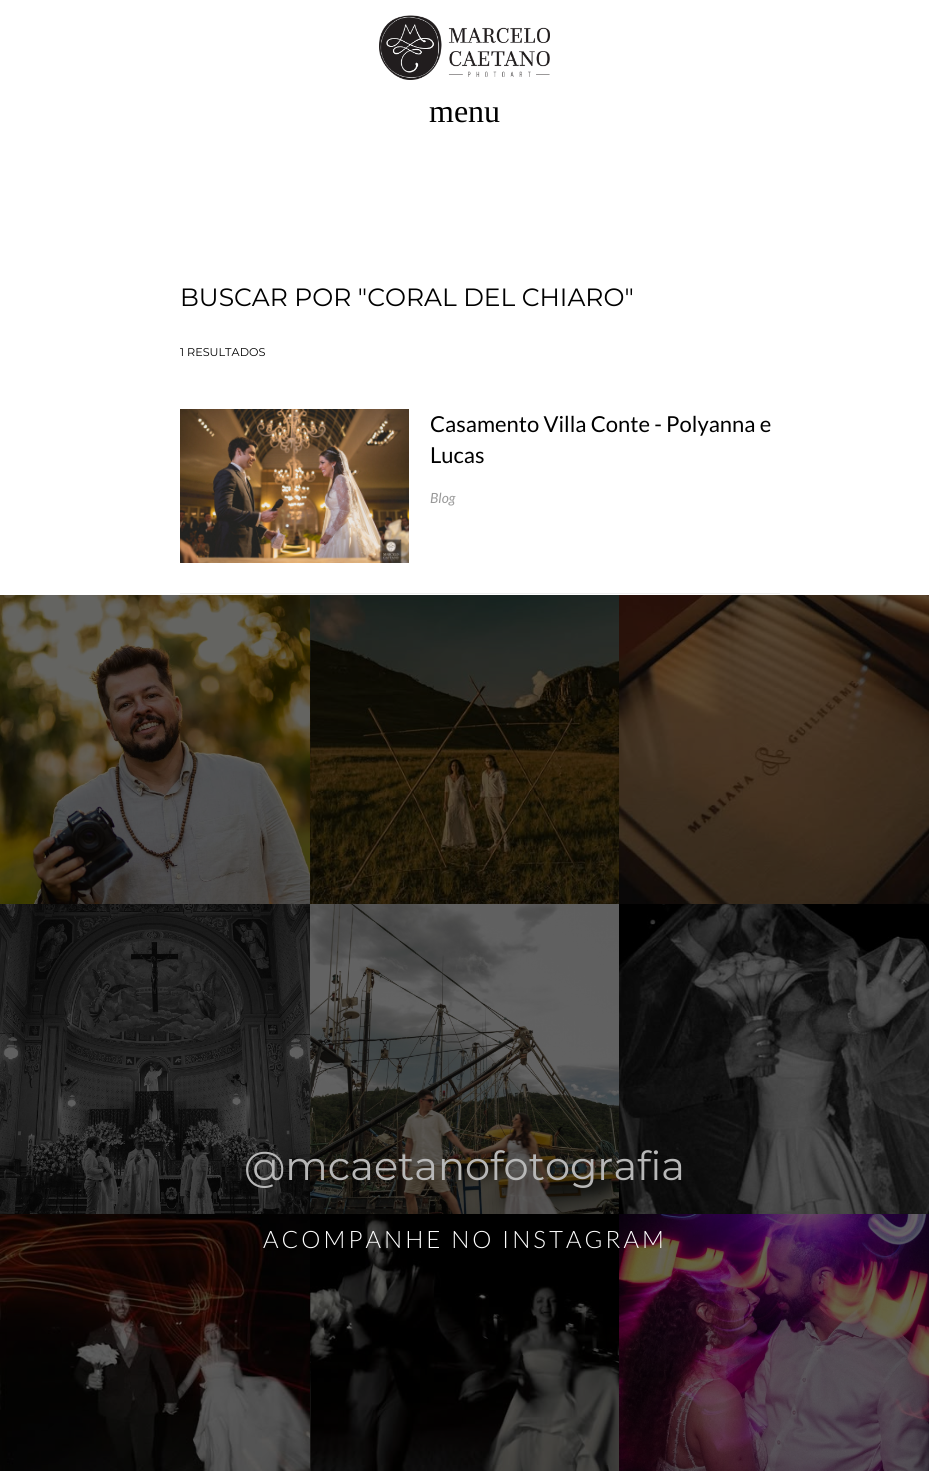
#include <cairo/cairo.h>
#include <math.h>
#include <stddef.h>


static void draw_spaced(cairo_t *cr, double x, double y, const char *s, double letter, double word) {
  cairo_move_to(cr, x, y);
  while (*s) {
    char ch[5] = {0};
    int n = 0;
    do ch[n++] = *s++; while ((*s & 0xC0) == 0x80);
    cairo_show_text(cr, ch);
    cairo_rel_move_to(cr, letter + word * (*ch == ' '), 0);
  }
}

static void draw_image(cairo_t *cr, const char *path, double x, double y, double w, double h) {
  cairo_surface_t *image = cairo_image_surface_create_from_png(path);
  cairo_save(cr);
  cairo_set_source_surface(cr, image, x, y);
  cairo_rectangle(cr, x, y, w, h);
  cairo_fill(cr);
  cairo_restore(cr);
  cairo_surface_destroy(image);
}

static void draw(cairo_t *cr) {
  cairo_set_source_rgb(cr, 1, 1, 1);
  cairo_paint(cr);
  draw_image(cr, "images/1.png", 379, 15, 171, 65);
  cairo_set_source_rgb(cr, 239 / 255.0, 239 / 255.0, 239 / 255.0);
  cairo_rectangle(cr, 180, 593, 600, 1);
  cairo_fill(cr);
  draw_image(cr, "images/2.png", 180, 409, 229, 154);
  cairo_set_source_rgb(cr, 0, 0, 0);
  cairo_rectangle(cr, 0, 595, 929, 876);
  cairo_fill(cr);
  draw_image(cr, "images/3.png", 0, 595, 310, 309);
  draw_image(cr, "images/4.png", 310, 595, 309, 309);
  draw_image(cr, "images/5.png", 619, 595, 310, 309);
  draw_image(cr, "images/6.png", 0, 904, 310, 310);
  draw_image(cr, "images/7.png", 310, 904, 309, 310);
  draw_image(cr, "images/8.png", 619, 904, 310, 310);
  draw_image(cr, "images/9.png", 0, 1214, 310, 257);
  draw_image(cr, "images/10.png", 310, 1214, 309, 257);
  draw_image(cr, "images/11.png", 619, 1214, 310, 257);
  cairo_select_font_face(cr, "Liberation Serif", CAIRO_FONT_SLANT_NORMAL, CAIRO_FONT_WEIGHT_NORMAL);
  cairo_set_font_size(cr, 32);
  cairo_move_to(cr, 429, 122);
  cairo_show_text(cr, "menu");
  cairo_select_font_face(cr, "Montserrat", CAIRO_FONT_SLANT_NORMAL, CAIRO_FONT_WEIGHT_NORMAL);
  cairo_set_font_size(cr, 25);
  cairo_move_to(cr, 180, 306);
  cairo_show_text(cr, "BUSCAR POR \"CORAL DEL CHIARO\"");
  cairo_set_font_size(cr, 11.25);
  cairo_move_to(cr, 180, 356);
  cairo_show_text(cr, "1 RESULTADOS");
  cairo_select_font_face(cr, "Lato", CAIRO_FONT_SLANT_NORMAL, CAIRO_FONT_WEIGHT_NORMAL);
  cairo_set_font_size(cr, 22);
  cairo_move_to(cr, 430, 432);
  cairo_show_text(cr, "Casamento Villa Conte - Polyanna e");
  cairo_move_to(cr, 430, 463);
  cairo_show_text(cr, "Lucas");
  cairo_select_font_face(cr, "Lato", CAIRO_FONT_SLANT_ITALIC, CAIRO_FONT_WEIGHT_NORMAL);
  cairo_set_font_size(cr, 14);
  cairo_set_source_rgb(cr, 153 / 255.0, 153 / 255.0, 153 / 255.0);
  cairo_move_to(cr, 430, 503);
  cairo_show_text(cr, "Blog");
  cairo_select_font_face(cr, "Montserrat", CAIRO_FONT_SLANT_NORMAL, CAIRO_FONT_WEIGHT_NORMAL);
  cairo_set_font_size(cr, 40);
  cairo_set_source_rgb(cr, 183 / 255.0, 183 / 255.0, 183 / 255.0);
  cairo_move_to(cr, 244, 1180);
  cairo_show_text(cr, "@mcaetanofotografia");
  cairo_select_font_face(cr, "Lato Light", CAIRO_FONT_SLANT_NORMAL, CAIRO_FONT_WEIGHT_NORMAL);
  cairo_set_font_size(cr, 24);
  cairo_set_source_rgb(cr, 1, 1, 1);
  draw_spaced(cr, 263, 1248, "ACOMPANHE NO INSTAGRAM", 3, 0);
}

int main(void) {
  cairo_surface_t *surface = cairo_image_surface_create(CAIRO_FORMAT_RGB24, 929, 1471);
  cairo_t *cr = cairo_create(surface);
  cairo_font_options_t *options = cairo_font_options_create();
  cairo_font_options_set_hint_metrics(options, CAIRO_HINT_METRICS_OFF);
  cairo_font_options_set_hint_style(options, CAIRO_HINT_STYLE_NONE);
  cairo_set_font_options(cr, options);
  cairo_set_miter_limit(cr, 4);
  draw(cr);
  cairo_surface_write_to_png(surface, "out.png");
  cairo_font_options_destroy(options);
  cairo_destroy(cr);
  cairo_surface_destroy(surface);
  return 0;
}
